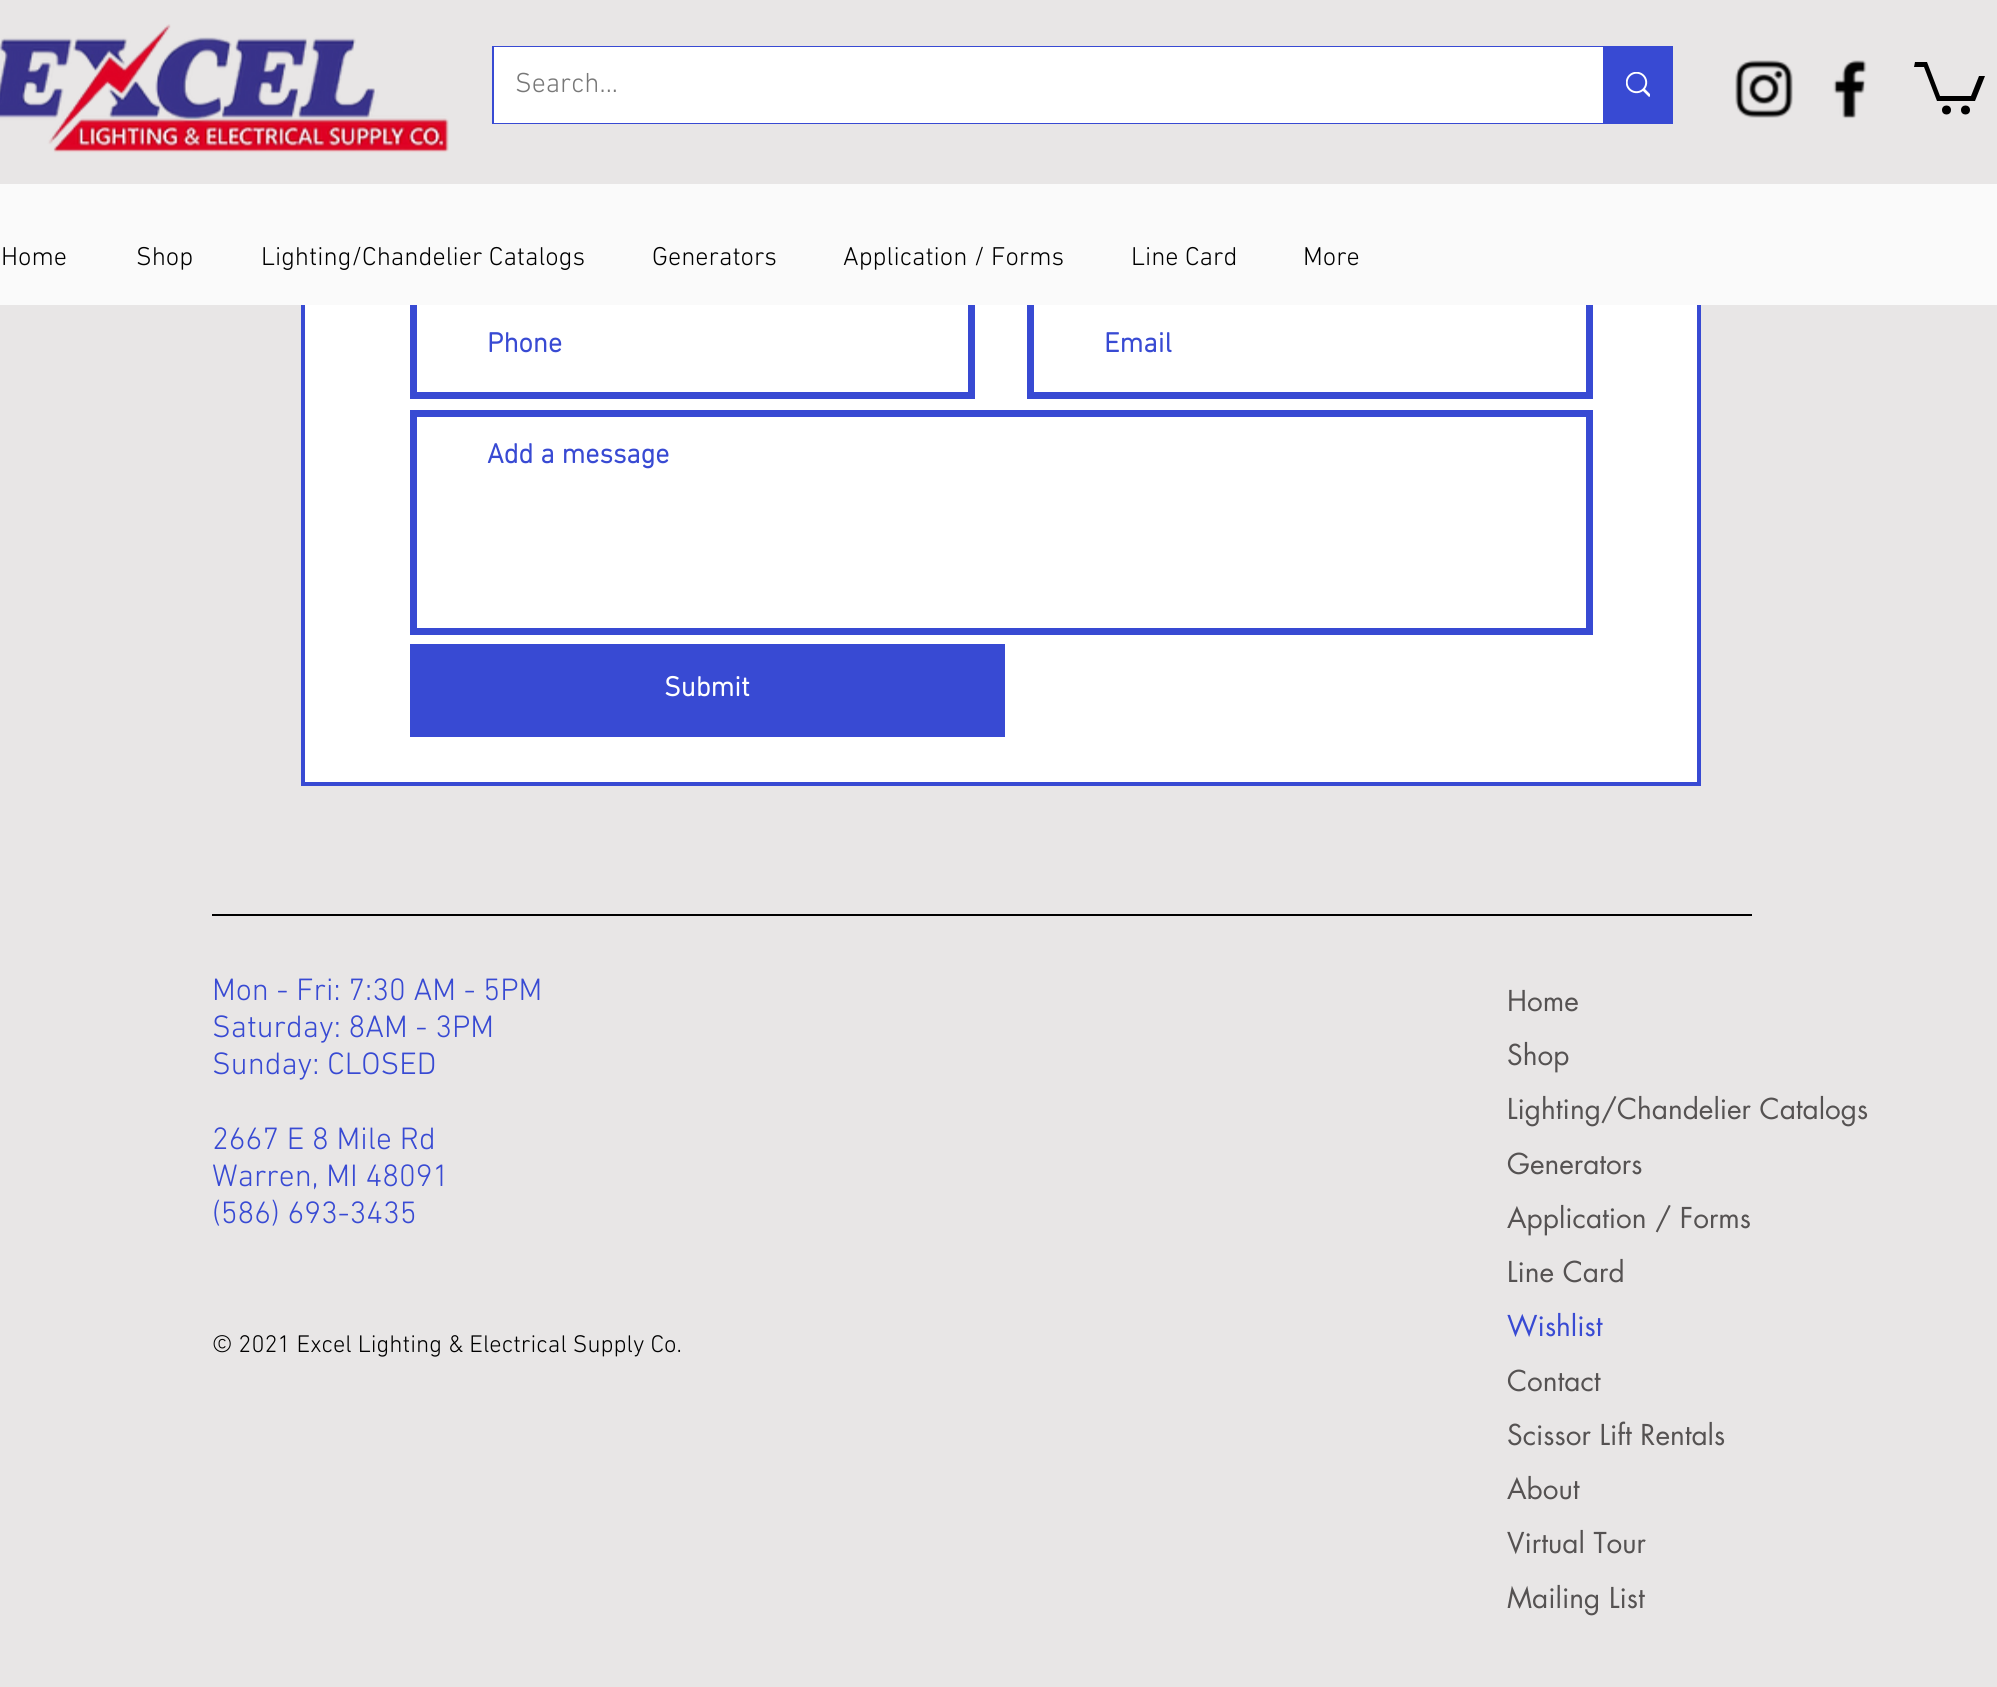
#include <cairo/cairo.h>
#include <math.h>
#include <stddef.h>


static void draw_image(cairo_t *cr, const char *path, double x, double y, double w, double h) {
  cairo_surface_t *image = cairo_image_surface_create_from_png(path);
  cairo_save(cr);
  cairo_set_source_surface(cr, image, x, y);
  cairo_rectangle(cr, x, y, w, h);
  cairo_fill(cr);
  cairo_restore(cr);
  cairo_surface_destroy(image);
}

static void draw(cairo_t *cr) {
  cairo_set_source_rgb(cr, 232 / 255.0, 230 / 255.0, 230 / 255.0);
  cairo_paint(cr);
  cairo_set_source_rgb(cr, 1, 1, 1);
  cairo_rectangle(cr, 305, 305, 1392, 477);
  cairo_fill(cr);
  cairo_rectangle(cr, 303, -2, 1396, 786);
  cairo_set_source_rgb(cr, 56 / 255.0, 74 / 255.0, 211 / 255.0);
  cairo_set_line_width(cr, 4);
  cairo_stroke(cr);
  cairo_set_source_rgb(cr, 232 / 255.0, 230 / 255.0, 230 / 255.0);
  cairo_rectangle(cr, 301, 0, 1400, 184);
  cairo_fill(cr);
  draw_image(cr, "images/1.png", 0, 24, 449, 129);
  cairo_rectangle(cr, 493, 47, 1179, 76);
  cairo_set_source_rgb(cr, 56 / 255.0, 74 / 255.0, 211 / 255.0);
  cairo_set_line_width(cr, 2);
  cairo_stroke(cr);
  cairo_set_source_rgb(cr, 1, 1, 1);
  cairo_rectangle(cr, 494, 47, 1109, 76);
  cairo_fill(cr);
  cairo_set_source_rgb(cr, 56 / 255.0, 74 / 255.0, 211 / 255.0);
  cairo_rectangle(cr, 1603, 48, 68, 74);
  cairo_fill(cr);
  draw_image(cr, "images/2.png", 1626, 72, 24, 25);
  draw_image(cr, "images/3.png", 1735, 60, 58, 58);
  draw_image(cr, "images/4.png", 1833, 60, 34, 59);
  cairo_set_source_rgb(cr, 0, 0, 0);
  cairo_new_path(cr);
  cairo_move_to(cr, 1985, 76);
  cairo_line_to(cr, 1975, 101);
  cairo_line_to(cr, 1937, 101);
  cairo_line_to(cr, 1924, 67);
  cairo_line_to(cr, 1914, 67);
  cairo_line_to(cr, 1915, 62);
  cairo_line_to(cr, 1927, 62);
  cairo_line_to(cr, 1940, 96);
  cairo_line_to(cr, 1971, 96);
  cairo_line_to(cr, 1979, 76);
  cairo_fill(cr);
  cairo_arc(cr, 1965.5, 110, 4.5, 0, 2 * M_PI);
  cairo_fill(cr);
  cairo_arc(cr, 1946.5, 110, 4.5, 0, 2 * M_PI);
  cairo_fill(cr);
  cairo_rectangle(cr, 413.5, 297.5, 558, 98);
  cairo_set_source_rgb(cr, 56 / 255.0, 74 / 255.0, 211 / 255.0);
  cairo_set_line_width(cr, 7);
  cairo_stroke(cr);
  cairo_rectangle(cr, 1030.5, 297.5, 559, 98);
  cairo_stroke(cr);
  cairo_set_source_rgb(cr, 250 / 255.0, 250 / 255.0, 250 / 255.0);
  cairo_rectangle(cr, 0, 184, 1997, 121);
  cairo_fill(cr);
  cairo_rectangle(cr, 413.5, 413.5, 1176, 218);
  cairo_set_source_rgb(cr, 56 / 255.0, 74 / 255.0, 211 / 255.0);
  cairo_stroke(cr);
  cairo_rectangle(cr, 410, 644, 595, 93);
  cairo_fill(cr);
  cairo_set_source_rgb(cr, 0, 0, 0);
  cairo_rectangle(cr, 212, 914, 1540, 2);
  cairo_fill(cr);
  cairo_select_font_face(cr, "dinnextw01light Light", CAIRO_FONT_SLANT_NORMAL, CAIRO_FONT_WEIGHT_NORMAL);
  cairo_set_font_size(cr, 28);
  cairo_set_source_rgb(cr, 120 / 255.0, 120 / 255.0, 120 / 255.0);
  cairo_move_to(cr, 515, 92);
  cairo_show_text(cr, "Search...");
  cairo_set_font_size(cr, 26.25);
  cairo_set_source_rgb(cr, 0, 0, 0);
  cairo_move_to(cr, 1, 265);
  cairo_show_text(cr, "Home");
  cairo_move_to(cr, 136, 265);
  cairo_show_text(cr, "Shop");
  cairo_move_to(cr, 261, 265);
  cairo_show_text(cr, "Lighting/Chandelier Catalogs");
  cairo_move_to(cr, 652, 265);
  cairo_show_text(cr, "Generators");
  cairo_move_to(cr, 843, 265);
  cairo_show_text(cr, "Application / Forms");
  cairo_move_to(cr, 1131, 265);
  cairo_show_text(cr, "Line Card");
  cairo_move_to(cr, 1303, 265);
  cairo_show_text(cr, "More");
  cairo_select_font_face(cr, "dinnextw01light", CAIRO_FONT_SLANT_NORMAL, CAIRO_FONT_WEIGHT_BOLD);
  cairo_set_font_size(cr, 28);
  cairo_set_source_rgb(cr, 56 / 255.0, 74 / 255.0, 211 / 255.0);
  cairo_move_to(cr, 487, 352);
  cairo_show_text(cr, "Phone");
  cairo_move_to(cr, 1104, 352);
  cairo_show_text(cr, "Email");
  cairo_move_to(cr, 487, 463);
  cairo_show_text(cr, "Add a message");
  cairo_set_source_rgb(cr, 1, 1, 1);
  cairo_move_to(cr, 664, 696);
  cairo_show_text(cr, "Submit");
  cairo_select_font_face(cr, "dinnextw01light Light", CAIRO_FONT_SLANT_NORMAL, CAIRO_FONT_WEIGHT_NORMAL);
  cairo_set_font_size(cr, 31.5);
  cairo_set_source_rgb(cr, 56 / 255.0, 74 / 255.0, 211 / 255.0);
  cairo_move_to(cr, 212, 1000);
  cairo_show_text(cr, "Mon - Fri: 7:30 AM - 5PM");
  cairo_move_to(cr, 212, 1037);
  cairo_show_text(cr, "Saturday: 8AM - 3PM");
  cairo_move_to(cr, 212, 1074);
  cairo_show_text(cr, "Sunday: CLOSED");
  cairo_move_to(cr, 212, 1149);
  cairo_show_text(cr, "2667 E 8 Mile Rd");
  cairo_move_to(cr, 212, 1186);
  cairo_show_text(cr, "Warren, MI 48091");
  cairo_move_to(cr, 212, 1223);
  cairo_show_text(cr, "(586) 693-3435");
  cairo_select_font_face(cr, "futura", CAIRO_FONT_SLANT_NORMAL, CAIRO_FONT_WEIGHT_NORMAL);
  cairo_set_font_size(cr, 28);
  cairo_set_source_rgb(cr, 85 / 255.0, 82 / 255.0, 82 / 255.0);
  cairo_move_to(cr, 1507, 1011);
  cairo_show_text(cr, "Home");
  cairo_move_to(cr, 1507, 1065);
  cairo_show_text(cr, "Shop");
  cairo_move_to(cr, 1507, 1119);
  cairo_show_text(cr, "Lighting/Chandelier Catalogs");
  cairo_move_to(cr, 1507, 1174);
  cairo_show_text(cr, "Generators");
  cairo_move_to(cr, 1507, 1228);
  cairo_show_text(cr, "Application / Forms");
  cairo_move_to(cr, 1507, 1282);
  cairo_show_text(cr, "Line Card");
  cairo_set_source_rgb(cr, 56 / 255.0, 74 / 255.0, 211 / 255.0);
  cairo_move_to(cr, 1507, 1336);
  cairo_show_text(cr, "Wishlist");
  cairo_set_source_rgb(cr, 85 / 255.0, 82 / 255.0, 82 / 255.0);
  cairo_move_to(cr, 1507, 1391);
  cairo_show_text(cr, "Contact");
  cairo_move_to(cr, 1507, 1445);
  cairo_show_text(cr, "Scissor Lift Rentals");
  cairo_move_to(cr, 1507, 1499);
  cairo_show_text(cr, "About");
  cairo_move_to(cr, 1507, 1553);
  cairo_show_text(cr, "Virtual Tour");
  cairo_move_to(cr, 1507, 1608);
  cairo_show_text(cr, "Mailing List");
  cairo_select_font_face(cr, "dinnextw01light Light", CAIRO_FONT_SLANT_NORMAL, CAIRO_FONT_WEIGHT_NORMAL);
  cairo_set_font_size(cr, 24.5);
  cairo_set_source_rgb(cr, 0, 0, 0);
  cairo_move_to(cr, 212, 1352);
  cairo_show_text(cr, "© 2021 Excel Lighting & Electrical Supply Co.");
}

int main(void) {
  cairo_surface_t *surface = cairo_image_surface_create(CAIRO_FORMAT_RGB24, 1997, 1687);
  cairo_t *cr = cairo_create(surface);
  cairo_font_options_t *options = cairo_font_options_create();
  cairo_font_options_set_hint_metrics(options, CAIRO_HINT_METRICS_OFF);
  cairo_font_options_set_hint_style(options, CAIRO_HINT_STYLE_NONE);
  cairo_set_font_options(cr, options);
  cairo_set_miter_limit(cr, 4);
  draw(cr);
  cairo_surface_write_to_png(surface, "out.png");
  cairo_font_options_destroy(options);
  cairo_destroy(cr);
  cairo_surface_destroy(surface);
  return 0;
}
